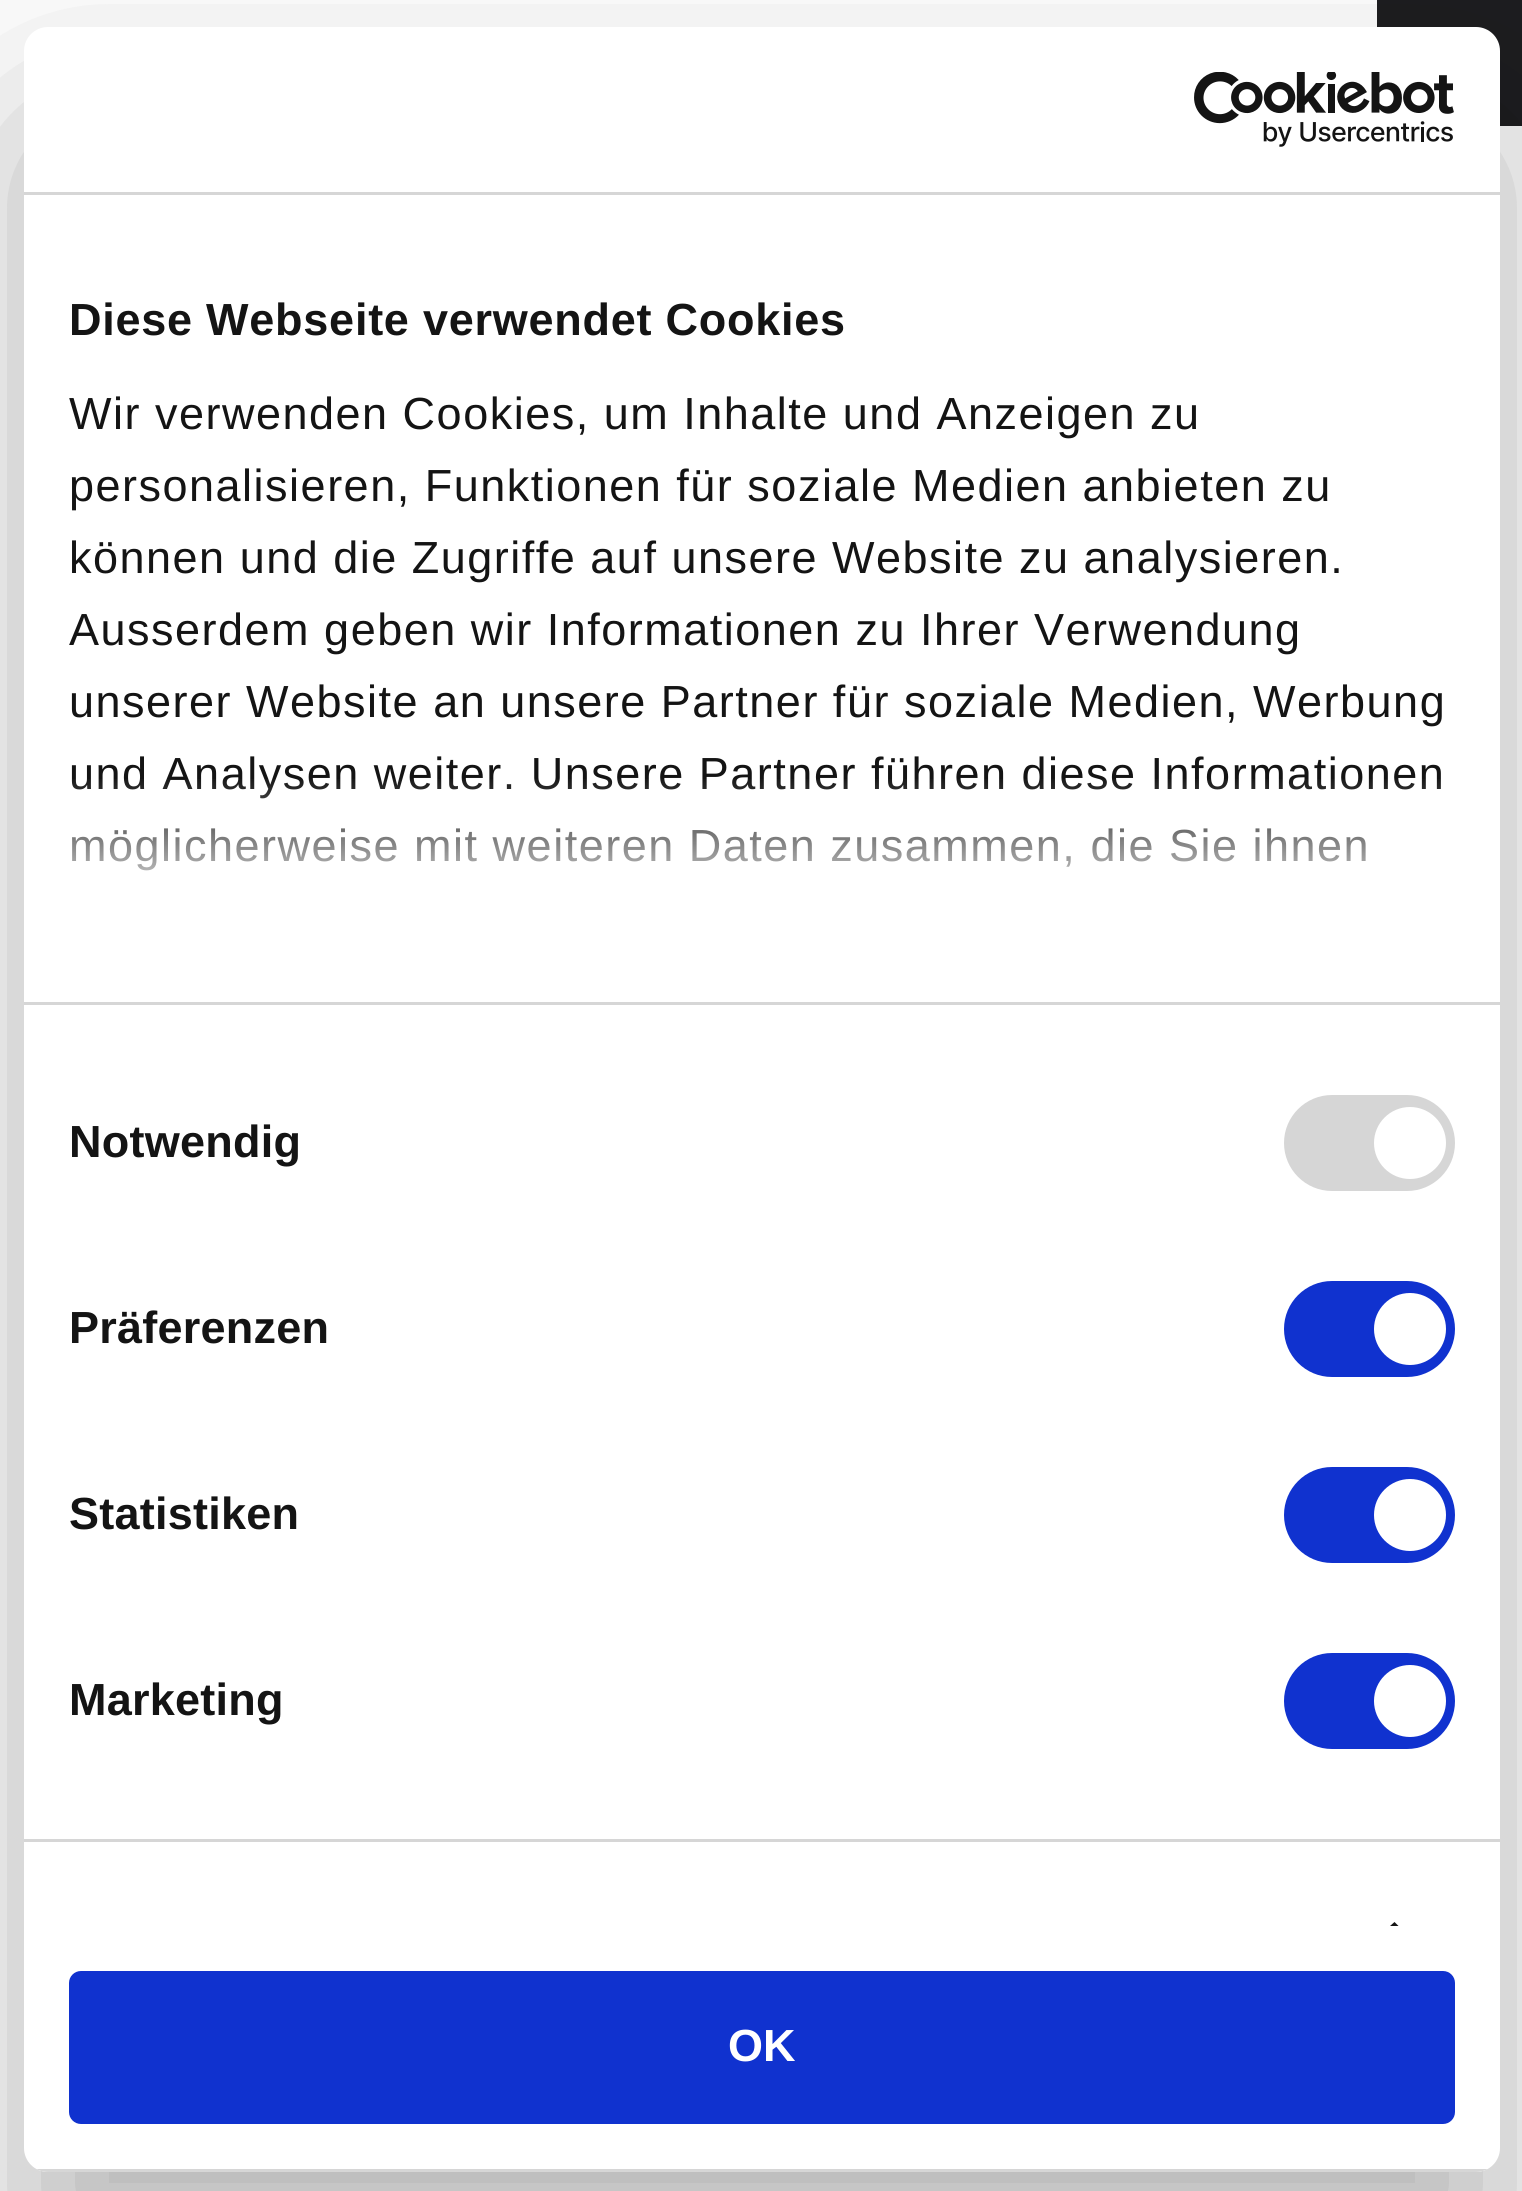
#include <cairo/cairo.h>
#include <math.h>
#include <stddef.h>


static void draw_spaced(cairo_t *cr, double x, double y, const char *s, double letter, double word) {
  cairo_move_to(cr, x, y);
  while (*s) {
    char ch[5] = {0};
    int n = 0;
    do ch[n++] = *s++; while ((*s & 0xC0) == 0x80);
    cairo_show_text(cr, ch);
    cairo_rel_move_to(cr, letter + word * (*ch == ' '), 0);
  }
}

static void rounded_rect(cairo_t *cr, double x, double y, double w, double h, double r) {
  cairo_new_sub_path(cr);
  cairo_arc(cr, x + w - r, y + h - r, r, 0, M_PI / 2);
  cairo_arc(cr, x + r, y + h - r, r, M_PI / 2, M_PI);
  cairo_arc(cr, x + r, y + r, r, M_PI, 1.5 * M_PI);
  cairo_arc(cr, x + w - r, y + r, r, 1.5 * M_PI, 2 * M_PI);
  cairo_close_path(cr);
}

static void draw_shadow(cairo_t *cr, double x, double y, double w, double h, double r, double blur, double alpha) {
  cairo_push_group_with_content(cr, CAIRO_CONTENT_ALPHA);
  cairo_set_operator(cr, CAIRO_OPERATOR_SOURCE);
  for (int i = 15; i >= -15 && fmin(w, h) + blur * i / 3 > 0; i -= 2) {
    double e = blur * i / 6;
    cairo_set_source_rgba(cr, 0, 0, 0, alpha * erfc((i - 1) / 8.5) / 2);
    rounded_rect(cr, x - e, y - e, w + 2 * e, h + 2 * e, fmax(0, fmin(r + e + blur * .6, fmin(w, h) / 2 + e)));
    cairo_fill(cr);
  }
  cairo_pattern_t *soft = cairo_pop_group(cr);
  cairo_mask(cr, soft);
  cairo_pattern_destroy(soft);
}

static void draw_image(cairo_t *cr, const char *path, double x, double y, double w, double h) {
  cairo_surface_t *image = cairo_image_surface_create_from_png(path);
  cairo_save(cr);
  cairo_set_source_surface(cr, image, x, y);
  cairo_rectangle(cr, x, y, w, h);
  cairo_fill(cr);
  cairo_restore(cr);
  cairo_surface_destroy(image);
}

static void draw(cairo_t *cr) {
  cairo_pattern_t *gradient;
  cairo_set_source_rgb(cr, 1, 1, 1);
  cairo_paint(cr);
  cairo_set_source_rgb(cr, 29 / 255.0, 29 / 255.0, 32 / 255.0);
  cairo_rectangle(cr, 1377, 0, 145, 126);
  cairo_fill(cr);
  cairo_set_source_rgb(cr, 0, 0, 0);
  draw_shadow(cr, 24, 123, 1476, 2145, 24, 102, 0.3);
  cairo_set_source_rgb(cr, 1, 1, 1);
  rounded_rect(cr, 24, 27, 1476, 2145, 24);
  cairo_fill(cr);
  cairo_set_source_rgb(cr, 214 / 255.0, 214 / 255.0, 214 / 255.0);
  cairo_rectangle(cr, 24, 192, 1476, 3);
  cairo_fill(cr);
  draw_image(cr, "images/1.png", 1194, 72, 260, 75);
  cairo_rectangle(cr, 24, 1002, 1476, 3);
  cairo_fill(cr);
  cairo_rectangle(cr, 24, 1839, 1476, 3);
  cairo_fill(cr);
  rounded_rect(cr, 1284, 1095, 171, 96, 48);
  cairo_fill(cr);
  cairo_set_source_rgb(cr, 1, 1, 1);
  cairo_arc(cr, 1410, 1143, 36, 0, 2 * M_PI);
  cairo_fill(cr);
  cairo_set_source_rgb(cr, 16 / 255.0, 50 / 255.0, 207 / 255.0);
  rounded_rect(cr, 1284, 1281, 171, 96, 48);
  cairo_fill(cr);
  cairo_set_source_rgb(cr, 1, 1, 1);
  cairo_arc(cr, 1410, 1329, 36, 0, 2 * M_PI);
  cairo_fill(cr);
  cairo_set_source_rgb(cr, 16 / 255.0, 50 / 255.0, 207 / 255.0);
  rounded_rect(cr, 1284, 1467, 171, 96, 48);
  cairo_fill(cr);
  cairo_set_source_rgb(cr, 1, 1, 1);
  cairo_arc(cr, 1410, 1515, 36, 0, 2 * M_PI);
  cairo_fill(cr);
  cairo_set_source_rgb(cr, 16 / 255.0, 50 / 255.0, 207 / 255.0);
  rounded_rect(cr, 1284, 1653, 171, 96, 48);
  cairo_fill(cr);
  cairo_set_source_rgb(cr, 1, 1, 1);
  cairo_arc(cr, 1410, 1701, 36, 0, 2 * M_PI);
  cairo_fill(cr);
  cairo_save(cr);
  cairo_rectangle(cr, 24, 195, 1476, 1731);
  cairo_clip(cr);
  cairo_set_source_rgb(cr, 20 / 255.0, 20 / 255.0, 20 / 255.0);
  cairo_new_path(cr);
  cairo_move_to(cr, 1394.5, 1922);
  cairo_line_to(cr, 1416.5, 1944);
  cairo_line_to(cr, 1412, 1948);
  cairo_line_to(cr, 1390, 1926);
  cairo_close_path(cr);
  cairo_fill(cr);
  cairo_restore(cr);
  cairo_save(cr);
  rounded_rect(cr, 24, 27, 1476, 2145, 24);
  cairo_clip(cr);
  cairo_set_source_rgb(cr, 214 / 255.0, 214 / 255.0, 214 / 255.0);
  cairo_rectangle(cr, 36, 2169, 1452, 3);
  cairo_fill(cr);
  cairo_restore(cr);
  cairo_set_source_rgb(cr, 16 / 255.0, 50 / 255.0, 207 / 255.0);
  rounded_rect(cr, 72, 1974, 1380, 147, 9);
  cairo_fill_preserve(cr);
  cairo_set_line_width(cr, 6);
  cairo_stroke(cr);
  cairo_select_font_face(cr, "Liberation Sans", CAIRO_FONT_SLANT_NORMAL, CAIRO_FONT_WEIGHT_BOLD);
  cairo_set_font_size(cr, 45);
  cairo_set_source_rgb(cr, 20 / 255.0, 20 / 255.0, 20 / 255.0);
  draw_spaced(cr, 69, 335, "Diese Webseite verwendet Cookies", 0.75, 0);
  cairo_select_font_face(cr, "Liberation Sans", CAIRO_FONT_SLANT_NORMAL, CAIRO_FONT_WEIGHT_NORMAL);
  draw_spaced(cr, 69, 429, "Wir verwenden Cookies, um Inhalte und Anzeigen zu", 1.5, 0);
  draw_spaced(cr, 69, 501, "personalisieren, Funktionen für soziale Medien anbieten zu", 1.5, 0);
  draw_spaced(cr, 69, 573, "können und die Zugriffe auf unsere Website zu analysieren.", 1.5, 0);
  draw_spaced(cr, 69, 645, "Ausserdem geben wir Informationen zu Ihrer Verwendung", 1.5, 0);
  draw_spaced(cr, 69, 717, "unserer Website an unsere Partner für soziale Medien, Werbung", 1.5, 0);
  draw_spaced(cr, 69, 789, "und Analysen weiter. Unsere Partner führen diese Informationen", 1.5, 0);
  draw_spaced(cr, 69, 861, "möglicherweise mit weiteren Daten zusammen, die Sie ihnen", 1.5, 0);
  gradient = cairo_pattern_create_linear(743, 1001, 743, 776);
  cairo_pattern_add_color_stop_rgba(gradient, 0, 1, 1, 1, 1);
  cairo_pattern_add_color_stop_rgba(gradient, 0.5, 1, 1, 1, 0.8);
  cairo_pattern_add_color_stop_rgba(gradient, 1, 1, 1, 1, 0);
  cairo_set_source(cr, gradient);
  cairo_pattern_destroy(gradient);
  cairo_rectangle(cr, 72, 779, 1369, 92);
  cairo_fill(cr);
  cairo_select_font_face(cr, "Liberation Sans", CAIRO_FONT_SLANT_NORMAL, CAIRO_FONT_WEIGHT_BOLD);
  cairo_set_source_rgb(cr, 20 / 255.0, 20 / 255.0, 20 / 255.0);
  draw_spaced(cr, 69, 1157, "Notwendig", 0.25, 0);
  draw_spaced(cr, 69, 1343, "Präferenzen", 0.25, 0);
  draw_spaced(cr, 69, 1529, "Statistiken", 0.25, 0);
  draw_spaced(cr, 69, 1715, "Marketing", 0.25, 0);
  cairo_set_source_rgb(cr, 1, 1, 1);
  cairo_move_to(cr, 728, 2061);
  cairo_show_text(cr, "OK");
}

int main(void) {
  cairo_surface_t *surface = cairo_image_surface_create(CAIRO_FORMAT_RGB24, 1522, 2191);
  cairo_t *cr = cairo_create(surface);
  cairo_font_options_t *options = cairo_font_options_create();
  cairo_font_options_set_hint_metrics(options, CAIRO_HINT_METRICS_OFF);
  cairo_font_options_set_hint_style(options, CAIRO_HINT_STYLE_NONE);
  cairo_set_font_options(cr, options);
  cairo_set_miter_limit(cr, 4);
  draw(cr);
  cairo_surface_write_to_png(surface, "out.png");
  cairo_font_options_destroy(options);
  cairo_destroy(cr);
  cairo_surface_destroy(surface);
  return 0;
}
